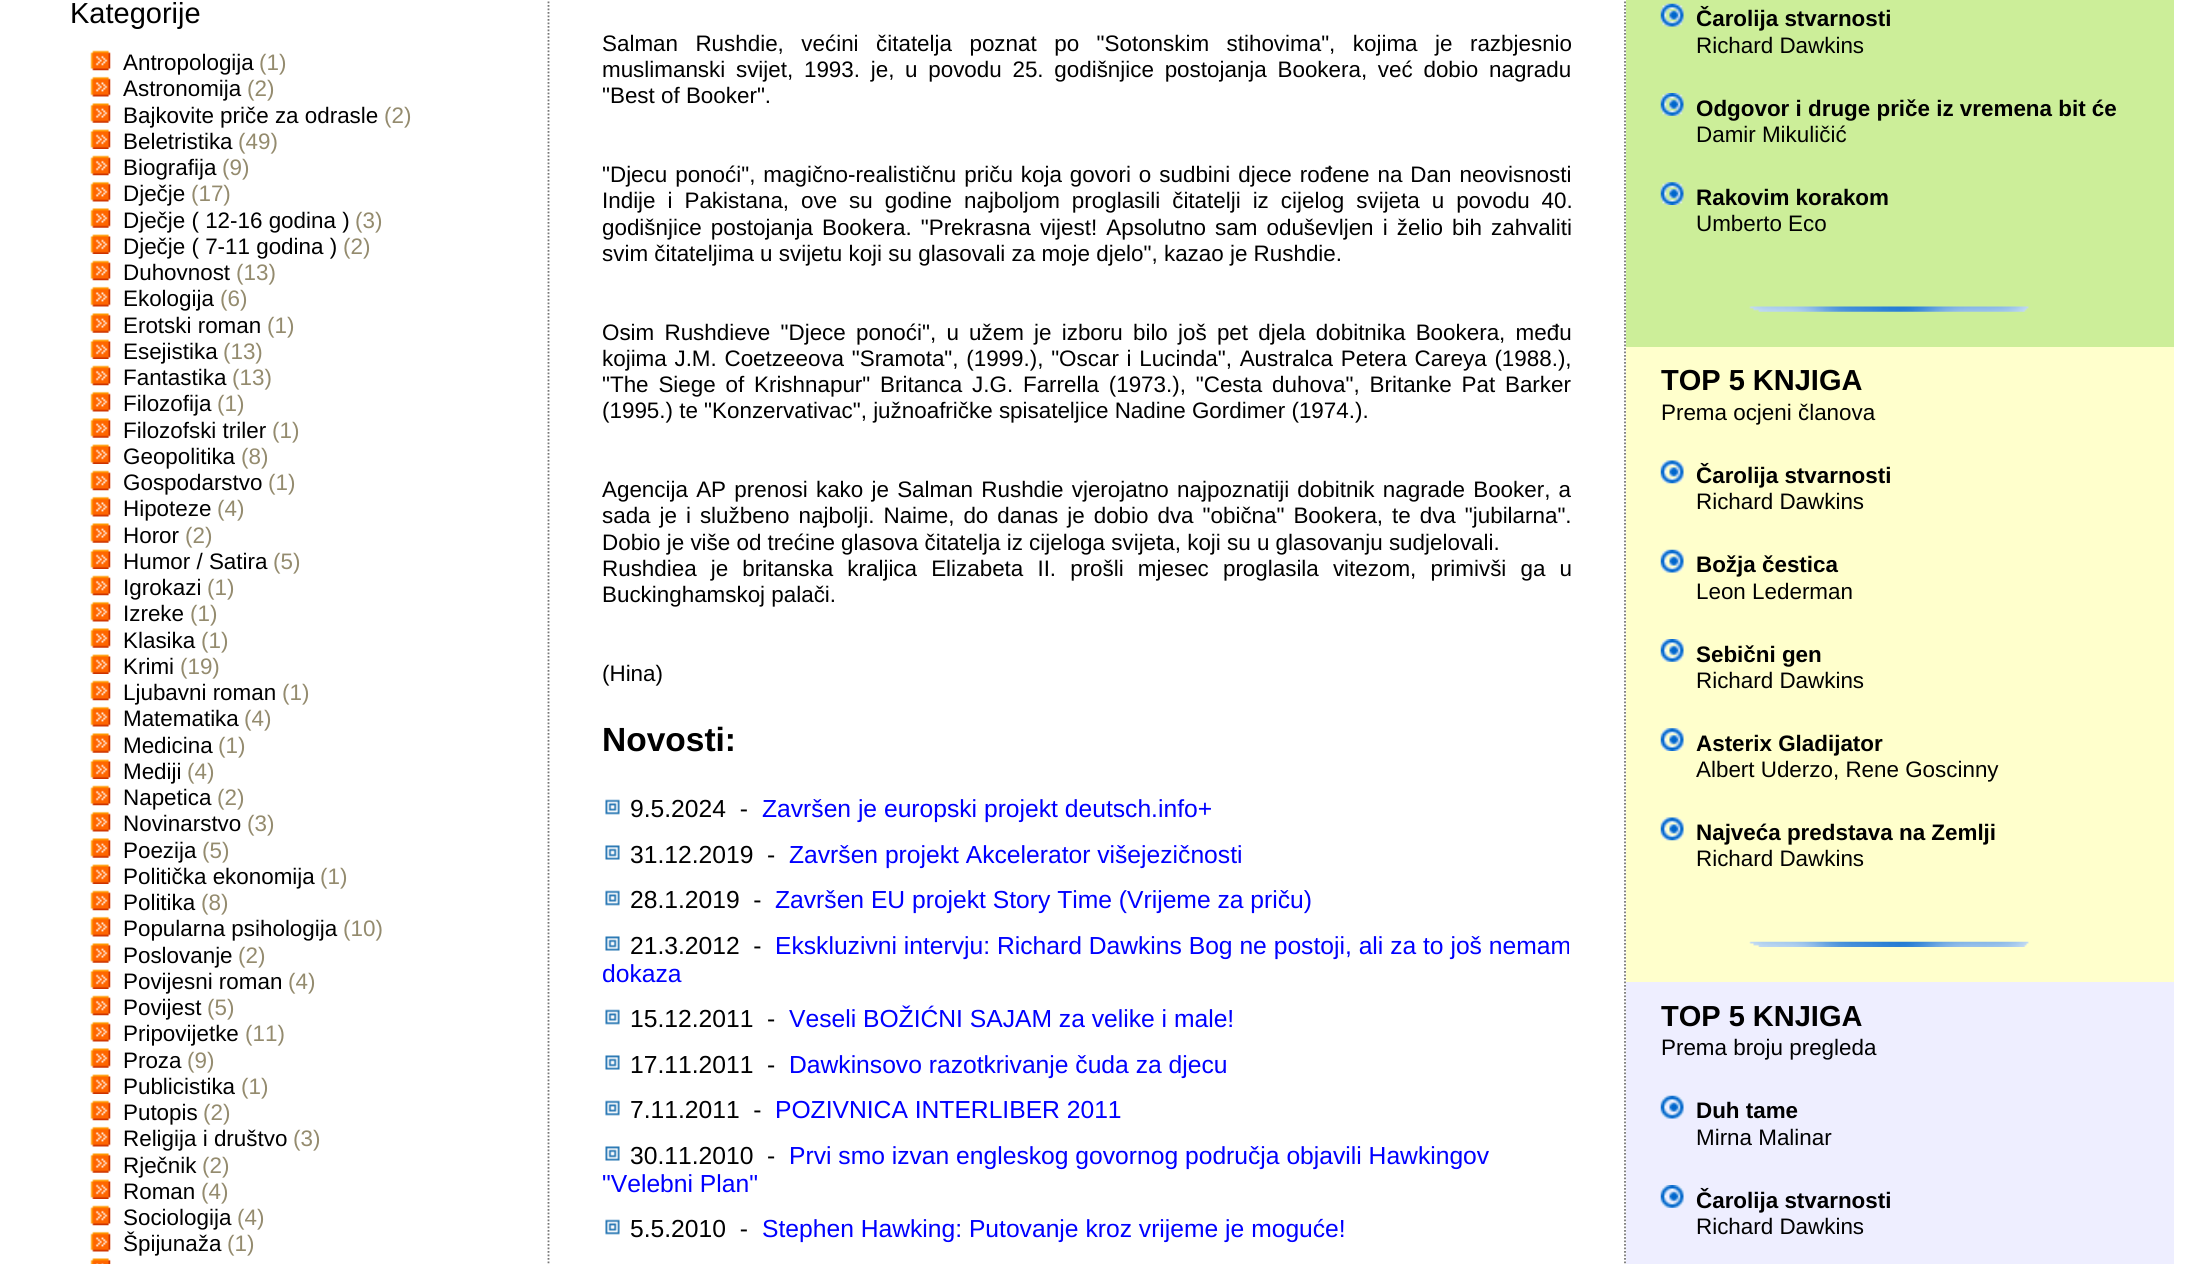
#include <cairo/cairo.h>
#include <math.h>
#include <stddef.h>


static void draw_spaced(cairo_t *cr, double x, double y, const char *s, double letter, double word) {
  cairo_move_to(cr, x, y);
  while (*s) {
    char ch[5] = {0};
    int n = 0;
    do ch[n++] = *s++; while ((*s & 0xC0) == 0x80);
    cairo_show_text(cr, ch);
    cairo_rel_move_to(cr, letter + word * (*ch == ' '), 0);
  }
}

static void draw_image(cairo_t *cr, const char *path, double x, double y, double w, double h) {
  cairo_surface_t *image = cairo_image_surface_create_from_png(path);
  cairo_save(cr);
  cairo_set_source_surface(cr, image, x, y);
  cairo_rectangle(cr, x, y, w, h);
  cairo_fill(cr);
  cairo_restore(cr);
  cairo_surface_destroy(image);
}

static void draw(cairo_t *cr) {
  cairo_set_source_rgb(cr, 1, 1, 1);
  cairo_paint(cr);
  cairo_new_path(cr);
  cairo_move_to(cr, 548.5, -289);
  cairo_line_to(cr, 548.5, 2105);
  cairo_set_source_rgb(cr, 119 / 255.0, 119 / 255.0, 119 / 255.0);
  cairo_set_line_width(cr, 1.8);
  cairo_set_dash(cr, (double[]){1.75, 1.75}, 2, 0);
  cairo_stroke(cr);
  draw_image(cr, "images/1.png", 90, 50, 21, 21);
  draw_image(cr, "images/2.png", 90, 76, 21, 21);
  draw_image(cr, "images/3.png", 90, 103, 21, 20);
  draw_image(cr, "images/4.png", 90, 129, 21, 20);
  draw_image(cr, "images/1.png", 90, 155, 21, 21);
  draw_image(cr, "images/2.png", 90, 181, 21, 21);
  draw_image(cr, "images/3.png", 90, 208, 21, 20);
  draw_image(cr, "images/4.png", 90, 234, 21, 20);
  draw_image(cr, "images/1.png", 90, 260, 21, 21);
  draw_image(cr, "images/2.png", 90, 286, 21, 21);
  draw_image(cr, "images/3.png", 90, 313, 21, 20);
  draw_image(cr, "images/4.png", 90, 339, 21, 20);
  draw_image(cr, "images/1.png", 90, 365, 21, 21);
  draw_image(cr, "images/2.png", 90, 391, 21, 21);
  draw_image(cr, "images/3.png", 90, 418, 21, 20);
  draw_image(cr, "images/4.png", 90, 444, 21, 20);
  draw_image(cr, "images/1.png", 90, 470, 21, 21);
  draw_image(cr, "images/2.png", 90, 496, 21, 21);
  draw_image(cr, "images/3.png", 90, 523, 21, 20);
  draw_image(cr, "images/4.png", 90, 549, 21, 20);
  draw_image(cr, "images/1.png", 90, 575, 21, 21);
  draw_image(cr, "images/2.png", 90, 601, 21, 21);
  draw_image(cr, "images/3.png", 90, 628, 21, 20);
  draw_image(cr, "images/4.png", 90, 654, 21, 20);
  draw_image(cr, "images/1.png", 90, 680, 21, 21);
  draw_image(cr, "images/2.png", 90, 706, 21, 21);
  draw_image(cr, "images/3.png", 90, 733, 21, 20);
  draw_image(cr, "images/4.png", 90, 759, 21, 20);
  draw_image(cr, "images/1.png", 90, 785, 21, 21);
  draw_image(cr, "images/2.png", 90, 811, 21, 21);
  draw_image(cr, "images/3.png", 90, 838, 21, 20);
  draw_image(cr, "images/4.png", 90, 864, 21, 20);
  draw_image(cr, "images/1.png", 90, 890, 21, 21);
  draw_image(cr, "images/2.png", 90, 916, 21, 21);
  draw_image(cr, "images/3.png", 90, 943, 21, 20);
  draw_image(cr, "images/4.png", 90, 969, 21, 20);
  draw_image(cr, "images/1.png", 90, 995, 21, 21);
  draw_image(cr, "images/2.png", 90, 1021, 21, 21);
  draw_image(cr, "images/3.png", 90, 1048, 21, 20);
  draw_image(cr, "images/4.png", 90, 1074, 21, 20);
  draw_image(cr, "images/1.png", 90, 1100, 21, 21);
  draw_image(cr, "images/2.png", 90, 1126, 21, 21);
  draw_image(cr, "images/3.png", 90, 1153, 21, 20);
  draw_image(cr, "images/4.png", 90, 1179, 21, 20);
  draw_image(cr, "images/1.png", 90, 1205, 21, 21);
  draw_image(cr, "images/5.png", 90, 1231, 21, 21);
  draw_image(cr, "images/6.png", 90, 1258, 21, 6);
  draw_image(cr, "images/7.png", 605, 799, 15, 16);
  draw_image(cr, "images/8.png", 605, 845, 15, 15);
  draw_image(cr, "images/7.png", 605, 890, 15, 16);
  draw_image(cr, "images/8.png", 605, 936, 15, 15);
  draw_image(cr, "images/7.png", 605, 1009, 15, 16);
  draw_image(cr, "images/8.png", 605, 1055, 15, 15);
  draw_image(cr, "images/7.png", 605, 1100, 15, 16);
  draw_image(cr, "images/8.png", 605, 1146, 15, 15);
  draw_image(cr, "images/7.png", 605, 1219, 15, 16);
  cairo_new_path(cr);
  cairo_move_to(cr, 1625, -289);
  cairo_line_to(cr, 1625, 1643);
  cairo_stroke(cr);
  cairo_set_source_rgb(cr, 204 / 255.0, 238 / 255.0, 153 / 255.0);
  cairo_rectangle(cr, 1626, 0, 548, 347);
  cairo_fill(cr);
  draw_image(cr, "images/9.png", 1660, 3, 24, 24);
  draw_image(cr, "images/10.png", 1660, 93, 24, 23);
  draw_image(cr, "images/11.png", 1660, 182, 24, 23);
  draw_image(cr, "images/12.png", 1749, 306, 280, 6);
  cairo_set_source_rgb(cr, 1, 1, 204 / 255.0);
  cairo_rectangle(cr, 1626, 347, 548, 635);
  cairo_fill(cr);
  draw_image(cr, "images/13.png", 1660, 460, 24, 24);
  draw_image(cr, "images/14.png", 1660, 549, 24, 24);
  draw_image(cr, "images/15.png", 1660, 639, 24, 23);
  draw_image(cr, "images/16.png", 1660, 728, 24, 23);
  draw_image(cr, "images/13.png", 1660, 817, 24, 24);
  draw_image(cr, "images/17.png", 1749, 941, 280, 6);
  cairo_set_source_rgb(cr, 238 / 255.0, 238 / 255.0, 1);
  cairo_rectangle(cr, 1626, 982, 548, 282);
  cairo_fill(cr);
  draw_image(cr, "images/18.png", 1660, 1095, 24, 24);
  draw_image(cr, "images/19.png", 1660, 1185, 24, 23);
  cairo_select_font_face(cr, "Liberation Sans", CAIRO_FONT_SLANT_NORMAL, CAIRO_FONT_WEIGHT_NORMAL);
  cairo_set_font_size(cr, 29);
  cairo_set_source_rgb(cr, 0, 0, 0);
  cairo_move_to(cr, 70, 23);
  cairo_show_text(cr, "Kategorije");
  cairo_set_font_size(cr, 22.4);
  cairo_move_to(cr, 123, 70);
  cairo_show_text(cr, "Antropologija");
  cairo_set_source_rgb(cr, 148 / 255.0, 139 / 255.0, 110 / 255.0);
  cairo_move_to(cr, 259, 70);
  cairo_show_text(cr, "(1)");
  cairo_set_source_rgb(cr, 0, 0, 0);
  cairo_move_to(cr, 123, 96);
  cairo_show_text(cr, "Astronomija");
  cairo_set_source_rgb(cr, 148 / 255.0, 139 / 255.0, 110 / 255.0);
  cairo_move_to(cr, 247, 96);
  cairo_show_text(cr, "(2)");
  cairo_set_source_rgb(cr, 0, 0, 0);
  cairo_move_to(cr, 123, 123);
  cairo_show_text(cr, "Bajkovite priče za odrasle");
  cairo_set_source_rgb(cr, 148 / 255.0, 139 / 255.0, 110 / 255.0);
  cairo_move_to(cr, 384, 123);
  cairo_show_text(cr, "(2)");
  cairo_set_source_rgb(cr, 0, 0, 0);
  cairo_move_to(cr, 123, 149);
  cairo_show_text(cr, "Beletristika");
  cairo_set_source_rgb(cr, 148 / 255.0, 139 / 255.0, 110 / 255.0);
  cairo_move_to(cr, 238, 149);
  cairo_show_text(cr, "(49)");
  cairo_set_source_rgb(cr, 0, 0, 0);
  cairo_move_to(cr, 123, 175);
  cairo_show_text(cr, "Biografija");
  cairo_set_source_rgb(cr, 148 / 255.0, 139 / 255.0, 110 / 255.0);
  cairo_move_to(cr, 222, 175);
  cairo_show_text(cr, "(9)");
  cairo_set_source_rgb(cr, 0, 0, 0);
  cairo_move_to(cr, 123, 201);
  cairo_show_text(cr, "Dječje");
  cairo_set_source_rgb(cr, 148 / 255.0, 139 / 255.0, 110 / 255.0);
  cairo_move_to(cr, 191, 201);
  cairo_show_text(cr, "(17)");
  cairo_set_source_rgb(cr, 0, 0, 0);
  cairo_move_to(cr, 123, 228);
  cairo_show_text(cr, "Dječje ( 12-16 godina )");
  cairo_set_source_rgb(cr, 148 / 255.0, 139 / 255.0, 110 / 255.0);
  cairo_move_to(cr, 355, 228);
  cairo_show_text(cr, "(3)");
  cairo_set_source_rgb(cr, 0, 0, 0);
  cairo_move_to(cr, 123, 254);
  cairo_show_text(cr, "Dječje ( 7-11 godina )");
  cairo_set_source_rgb(cr, 148 / 255.0, 139 / 255.0, 110 / 255.0);
  cairo_move_to(cr, 343, 254);
  cairo_show_text(cr, "(2)");
  cairo_set_source_rgb(cr, 0, 0, 0);
  cairo_move_to(cr, 123, 280);
  cairo_show_text(cr, "Duhovnost");
  cairo_set_source_rgb(cr, 148 / 255.0, 139 / 255.0, 110 / 255.0);
  cairo_move_to(cr, 236, 280);
  cairo_show_text(cr, "(13)");
  cairo_set_source_rgb(cr, 0, 0, 0);
  cairo_move_to(cr, 123, 306);
  cairo_show_text(cr, "Ekologija");
  cairo_set_source_rgb(cr, 148 / 255.0, 139 / 255.0, 110 / 255.0);
  cairo_move_to(cr, 220, 306);
  cairo_show_text(cr, "(6)");
  cairo_set_source_rgb(cr, 0, 0, 0);
  cairo_move_to(cr, 123, 333);
  cairo_show_text(cr, "Erotski roman");
  cairo_set_source_rgb(cr, 148 / 255.0, 139 / 255.0, 110 / 255.0);
  cairo_move_to(cr, 267, 333);
  cairo_show_text(cr, "(1)");
  cairo_set_source_rgb(cr, 0, 0, 0);
  cairo_move_to(cr, 123, 359);
  cairo_show_text(cr, "Esejistika");
  cairo_set_source_rgb(cr, 148 / 255.0, 139 / 255.0, 110 / 255.0);
  cairo_move_to(cr, 223, 359);
  cairo_show_text(cr, "(13)");
  cairo_set_source_rgb(cr, 0, 0, 0);
  cairo_move_to(cr, 123, 385);
  cairo_show_text(cr, "Fantastika");
  cairo_set_source_rgb(cr, 148 / 255.0, 139 / 255.0, 110 / 255.0);
  cairo_move_to(cr, 232, 385);
  cairo_show_text(cr, "(13)");
  cairo_set_source_rgb(cr, 0, 0, 0);
  cairo_move_to(cr, 123, 411);
  cairo_show_text(cr, "Filozofija");
  cairo_set_source_rgb(cr, 148 / 255.0, 139 / 255.0, 110 / 255.0);
  cairo_move_to(cr, 217, 411);
  cairo_show_text(cr, "(1)");
  cairo_set_source_rgb(cr, 0, 0, 0);
  cairo_move_to(cr, 123, 438);
  cairo_show_text(cr, "Filozofski triler");
  cairo_set_source_rgb(cr, 148 / 255.0, 139 / 255.0, 110 / 255.0);
  cairo_move_to(cr, 272, 438);
  cairo_show_text(cr, "(1)");
  cairo_set_source_rgb(cr, 0, 0, 0);
  cairo_move_to(cr, 123, 464);
  cairo_show_text(cr, "Geopolitika");
  cairo_set_source_rgb(cr, 148 / 255.0, 139 / 255.0, 110 / 255.0);
  cairo_move_to(cr, 241, 464);
  cairo_show_text(cr, "(8)");
  cairo_set_source_rgb(cr, 0, 0, 0);
  cairo_move_to(cr, 123, 490);
  cairo_show_text(cr, "Gospodarstvo");
  cairo_set_source_rgb(cr, 148 / 255.0, 139 / 255.0, 110 / 255.0);
  cairo_move_to(cr, 268, 490);
  cairo_show_text(cr, "(1)");
  cairo_set_source_rgb(cr, 0, 0, 0);
  cairo_move_to(cr, 123, 516);
  cairo_show_text(cr, "Hipoteze");
  cairo_set_source_rgb(cr, 148 / 255.0, 139 / 255.0, 110 / 255.0);
  cairo_move_to(cr, 217, 516);
  cairo_show_text(cr, "(4)");
  cairo_set_source_rgb(cr, 0, 0, 0);
  cairo_move_to(cr, 123, 543);
  cairo_show_text(cr, "Horor");
  cairo_set_source_rgb(cr, 148 / 255.0, 139 / 255.0, 110 / 255.0);
  cairo_move_to(cr, 185, 543);
  cairo_show_text(cr, "(2)");
  cairo_set_source_rgb(cr, 0, 0, 0);
  cairo_move_to(cr, 123, 569);
  cairo_show_text(cr, "Humor / Satira");
  cairo_set_source_rgb(cr, 148 / 255.0, 139 / 255.0, 110 / 255.0);
  cairo_move_to(cr, 273, 569);
  cairo_show_text(cr, "(5)");
  cairo_set_source_rgb(cr, 0, 0, 0);
  cairo_move_to(cr, 123, 595);
  cairo_show_text(cr, "Igrokazi");
  cairo_set_source_rgb(cr, 148 / 255.0, 139 / 255.0, 110 / 255.0);
  cairo_move_to(cr, 207, 595);
  cairo_show_text(cr, "(1)");
  cairo_set_source_rgb(cr, 0, 0, 0);
  cairo_move_to(cr, 123, 621);
  cairo_show_text(cr, "Izreke");
  cairo_set_source_rgb(cr, 148 / 255.0, 139 / 255.0, 110 / 255.0);
  cairo_move_to(cr, 190, 621);
  cairo_show_text(cr, "(1)");
  cairo_set_source_rgb(cr, 0, 0, 0);
  cairo_move_to(cr, 123, 648);
  cairo_show_text(cr, "Klasika");
  cairo_set_source_rgb(cr, 148 / 255.0, 139 / 255.0, 110 / 255.0);
  cairo_move_to(cr, 201, 648);
  cairo_show_text(cr, "(1)");
  cairo_set_source_rgb(cr, 0, 0, 0);
  cairo_move_to(cr, 123, 674);
  cairo_show_text(cr, "Krimi");
  cairo_set_source_rgb(cr, 148 / 255.0, 139 / 255.0, 110 / 255.0);
  cairo_move_to(cr, 180, 674);
  cairo_show_text(cr, "(19)");
  cairo_set_source_rgb(cr, 0, 0, 0);
  cairo_move_to(cr, 123, 700);
  cairo_show_text(cr, "Ljubavni roman");
  cairo_set_source_rgb(cr, 148 / 255.0, 139 / 255.0, 110 / 255.0);
  cairo_move_to(cr, 282, 700);
  cairo_show_text(cr, "(1)");
  cairo_set_source_rgb(cr, 0, 0, 0);
  cairo_move_to(cr, 123, 726);
  cairo_show_text(cr, "Matematika");
  cairo_set_source_rgb(cr, 148 / 255.0, 139 / 255.0, 110 / 255.0);
  cairo_move_to(cr, 244, 726);
  cairo_show_text(cr, "(4)");
  cairo_set_source_rgb(cr, 0, 0, 0);
  cairo_move_to(cr, 123, 753);
  cairo_show_text(cr, "Medicina");
  cairo_set_source_rgb(cr, 148 / 255.0, 139 / 255.0, 110 / 255.0);
  cairo_move_to(cr, 218, 753);
  cairo_show_text(cr, "(1)");
  cairo_set_source_rgb(cr, 0, 0, 0);
  cairo_move_to(cr, 123, 779);
  cairo_show_text(cr, "Mediji");
  cairo_set_source_rgb(cr, 148 / 255.0, 139 / 255.0, 110 / 255.0);
  cairo_move_to(cr, 187, 779);
  cairo_show_text(cr, "(4)");
  cairo_set_source_rgb(cr, 0, 0, 0);
  cairo_move_to(cr, 123, 805);
  cairo_show_text(cr, "Napetica");
  cairo_set_source_rgb(cr, 148 / 255.0, 139 / 255.0, 110 / 255.0);
  cairo_move_to(cr, 217, 805);
  cairo_show_text(cr, "(2)");
  cairo_set_source_rgb(cr, 0, 0, 0);
  cairo_move_to(cr, 123, 831);
  cairo_show_text(cr, "Novinarstvo");
  cairo_set_source_rgb(cr, 148 / 255.0, 139 / 255.0, 110 / 255.0);
  cairo_move_to(cr, 247, 831);
  cairo_show_text(cr, "(3)");
  cairo_set_source_rgb(cr, 0, 0, 0);
  cairo_move_to(cr, 123, 858);
  cairo_show_text(cr, "Poezija");
  cairo_set_source_rgb(cr, 148 / 255.0, 139 / 255.0, 110 / 255.0);
  cairo_move_to(cr, 202, 858);
  cairo_show_text(cr, "(5)");
  cairo_set_source_rgb(cr, 0, 0, 0);
  cairo_move_to(cr, 123, 884);
  cairo_show_text(cr, "Politička ekonomija");
  cairo_set_source_rgb(cr, 148 / 255.0, 139 / 255.0, 110 / 255.0);
  cairo_move_to(cr, 320, 884);
  cairo_show_text(cr, "(1)");
  cairo_set_source_rgb(cr, 0, 0, 0);
  cairo_move_to(cr, 123, 910);
  cairo_show_text(cr, "Politika");
  cairo_set_source_rgb(cr, 148 / 255.0, 139 / 255.0, 110 / 255.0);
  cairo_move_to(cr, 201, 910);
  cairo_show_text(cr, "(8)");
  cairo_set_source_rgb(cr, 0, 0, 0);
  cairo_move_to(cr, 123, 936);
  cairo_show_text(cr, "Popularna psihologija");
  cairo_set_source_rgb(cr, 148 / 255.0, 139 / 255.0, 110 / 255.0);
  cairo_move_to(cr, 343, 936);
  cairo_show_text(cr, "(10)");
  cairo_set_source_rgb(cr, 0, 0, 0);
  cairo_move_to(cr, 123, 963);
  cairo_show_text(cr, "Poslovanje");
  cairo_set_source_rgb(cr, 148 / 255.0, 139 / 255.0, 110 / 255.0);
  cairo_move_to(cr, 238, 963);
  cairo_show_text(cr, "(2)");
  cairo_set_source_rgb(cr, 0, 0, 0);
  cairo_move_to(cr, 123, 989);
  cairo_show_text(cr, "Povijesni roman");
  cairo_set_source_rgb(cr, 148 / 255.0, 139 / 255.0, 110 / 255.0);
  cairo_move_to(cr, 288, 989);
  cairo_show_text(cr, "(4)");
  cairo_set_source_rgb(cr, 0, 0, 0);
  cairo_move_to(cr, 123, 1015);
  cairo_show_text(cr, "Povijest");
  cairo_set_source_rgb(cr, 148 / 255.0, 139 / 255.0, 110 / 255.0);
  cairo_move_to(cr, 207, 1015);
  cairo_show_text(cr, "(5)");
  cairo_set_source_rgb(cr, 0, 0, 0);
  cairo_move_to(cr, 123, 1041);
  cairo_show_text(cr, "Pripovijetke");
  cairo_set_source_rgb(cr, 148 / 255.0, 139 / 255.0, 110 / 255.0);
  cairo_move_to(cr, 245, 1041);
  cairo_show_text(cr, "(11)");
  cairo_set_source_rgb(cr, 0, 0, 0);
  cairo_move_to(cr, 123, 1068);
  cairo_show_text(cr, "Proza");
  cairo_set_source_rgb(cr, 148 / 255.0, 139 / 255.0, 110 / 255.0);
  cairo_move_to(cr, 187, 1068);
  cairo_show_text(cr, "(9)");
  cairo_set_source_rgb(cr, 0, 0, 0);
  cairo_move_to(cr, 123, 1094);
  cairo_show_text(cr, "Publicistika");
  cairo_set_source_rgb(cr, 148 / 255.0, 139 / 255.0, 110 / 255.0);
  cairo_move_to(cr, 241, 1094);
  cairo_show_text(cr, "(1)");
  cairo_set_source_rgb(cr, 0, 0, 0);
  cairo_move_to(cr, 123, 1120);
  cairo_show_text(cr, "Putopis");
  cairo_set_source_rgb(cr, 148 / 255.0, 139 / 255.0, 110 / 255.0);
  cairo_move_to(cr, 203, 1120);
  cairo_show_text(cr, "(2)");
  cairo_set_source_rgb(cr, 0, 0, 0);
  cairo_move_to(cr, 123, 1146);
  cairo_show_text(cr, "Religija i društvo");
  cairo_set_source_rgb(cr, 148 / 255.0, 139 / 255.0, 110 / 255.0);
  cairo_move_to(cr, 293, 1146);
  cairo_show_text(cr, "(3)");
  cairo_set_source_rgb(cr, 0, 0, 0);
  cairo_move_to(cr, 123, 1173);
  cairo_show_text(cr, "Rječnik");
  cairo_set_source_rgb(cr, 148 / 255.0, 139 / 255.0, 110 / 255.0);
  cairo_move_to(cr, 202, 1173);
  cairo_show_text(cr, "(2)");
  cairo_set_source_rgb(cr, 0, 0, 0);
  cairo_move_to(cr, 123, 1199);
  cairo_show_text(cr, "Roman");
  cairo_set_source_rgb(cr, 148 / 255.0, 139 / 255.0, 110 / 255.0);
  cairo_move_to(cr, 201, 1199);
  cairo_show_text(cr, "(4)");
  cairo_set_source_rgb(cr, 0, 0, 0);
  cairo_move_to(cr, 123, 1225);
  cairo_show_text(cr, "Sociologija");
  cairo_set_source_rgb(cr, 148 / 255.0, 139 / 255.0, 110 / 255.0);
  cairo_move_to(cr, 237, 1225);
  cairo_show_text(cr, "(4)");
  cairo_set_source_rgb(cr, 0, 0, 0);
  cairo_move_to(cr, 123, 1251);
  cairo_show_text(cr, "Špijunaža");
  cairo_set_source_rgb(cr, 148 / 255.0, 139 / 255.0, 110 / 255.0);
  cairo_move_to(cr, 227, 1251);
  cairo_show_text(cr, "(1)");
  cairo_set_source_rgb(cr, 0, 0, 0);
  draw_spaced(cr, 602, 51, "Salman Rushdie, većini čitatelja poznat po \"Sotonskim stihovima\", kojima je razbjesnio", 0, 11.25);
  draw_spaced(cr, 602, 77, "muslimanski svijet, 1993. je, u povodu 25. godišnjice postojanja Bookera, već dobio nagradu", 0, 4.5);
  cairo_move_to(cr, 602, 103);
  cairo_show_text(cr, "\"Best of Booker\".");
  draw_spaced(cr, 602, 182, "\"Djecu ponoći\", magično-realističnu priču koja govori o sudbini djece rođene na Dan neovisnosti", 0, 1.75);
  draw_spaced(cr, 602, 208, "Indije i Pakistana, ove su godine najboljom proglasili čitatelji iz cijelog svijeta u povodu 40.", 0, 5.75);
  draw_spaced(cr, 602, 235, "godišnjice postojanja Bookera. \"Prekrasna vijest! Apsolutno sam oduševljen i želio bih zahvaliti", 0, 2.9);
  cairo_move_to(cr, 602, 261);
  cairo_show_text(cr, "svim čitateljima u svijetu koji su glasovali za moje djelo\", kazao je Rushdie.");
  draw_spaced(cr, 602, 340, "Osim Rushdieve \"Djece ponoći\", u užem je izboru bilo još pet djela dobitnika Bookera, među", 0, 4);
  draw_spaced(cr, 602, 366, "kojima J.M. Coetzeeova \"Sramota\", (1999.), \"Oscar i Lucinda\", Australca Petera Careya (1988.),", 0, 1.5);
  draw_spaced(cr, 602, 392, "\"The Siege of Krishnapur\" Britanca J.G. Farrella (1973.), \"Cesta duhova\", Britanke Pat Barker", 0, 3.6);
  cairo_move_to(cr, 602, 418);
  cairo_show_text(cr, "(1995.) te \"Konzervativac\", južnoafričke spisateljice Nadine Gordimer (1974.).");
  draw_spaced(cr, 602, 497, "Agencija AP prenosi kako je Salman Rushdie vjerojatno najpoznatiji dobitnik nagrade Booker, a", 0, 2);
  draw_spaced(cr, 602, 523, "sada je i službeno najbolji. Naime, do danas je dobio dva \"obična\" Bookera, te dva \"jubilarna\".", 0, 2.75);
  cairo_move_to(cr, 602, 550);
  cairo_show_text(cr, "Dobio je više od trećine glasova čitatelja iz cijeloga svijeta, koji su u glasovanju sudjelovali.");
  draw_spaced(cr, 602, 576, "Rushdiea je britanska kraljica Elizabeta II. prošli mjesec proglasila vitezom, primivši ga u", 0, 7.9);
  cairo_move_to(cr, 602, 602);
  cairo_show_text(cr, "Buckinghamskoj palači.");
  cairo_move_to(cr, 602, 681);
  cairo_show_text(cr, "(Hina)");
  cairo_select_font_face(cr, "Liberation Sans", CAIRO_FONT_SLANT_NORMAL, CAIRO_FONT_WEIGHT_BOLD);
  cairo_set_font_size(cr, 33.5);
  cairo_move_to(cr, 602, 751);
  cairo_show_text(cr, "Novosti:");
  cairo_select_font_face(cr, "Liberation Sans", CAIRO_FONT_SLANT_NORMAL, CAIRO_FONT_WEIGHT_NORMAL);
  cairo_set_font_size(cr, 24.65);
  cairo_move_to(cr, 630, 817);
  cairo_show_text(cr, "9.5.2024  -");
  cairo_set_source_rgb(cr, 0, 0, 1);
  cairo_move_to(cr, 762, 817);
  cairo_show_text(cr, "Završen je europski projekt deutsch.info+");
  cairo_set_source_rgb(cr, 0, 0, 0);
  cairo_move_to(cr, 630, 863);
  cairo_show_text(cr, "31.12.2019  -");
  cairo_set_source_rgb(cr, 0, 0, 1);
  cairo_move_to(cr, 789, 863);
  cairo_show_text(cr, "Završen projekt Akcelerator višejezičnosti");
  cairo_set_source_rgb(cr, 0, 0, 0);
  cairo_move_to(cr, 630, 908);
  cairo_show_text(cr, "28.1.2019  -");
  cairo_set_source_rgb(cr, 0, 0, 1);
  cairo_move_to(cr, 775, 908);
  cairo_show_text(cr, "Završen EU projekt Story Time (Vrijeme za priču)");
  cairo_set_source_rgb(cr, 0, 0, 0);
  cairo_move_to(cr, 630, 954);
  cairo_show_text(cr, "21.3.2012  -");
  cairo_set_source_rgb(cr, 0, 0, 1);
  cairo_move_to(cr, 775, 954);
  cairo_show_text(cr, "Ekskluzivni intervju: Richard Dawkins Bog ne postoji, ali za to još nemam");
  cairo_move_to(cr, 602, 982);
  cairo_show_text(cr, "dokaza");
  cairo_set_source_rgb(cr, 0, 0, 0);
  cairo_move_to(cr, 630, 1027);
  cairo_show_text(cr, "15.12.2011  -");
  cairo_set_source_rgb(cr, 0, 0, 1);
  cairo_move_to(cr, 789, 1027);
  cairo_show_text(cr, "Veseli BOŽIĆNI SAJAM za velike i male!");
  cairo_set_source_rgb(cr, 0, 0, 0);
  cairo_move_to(cr, 630, 1073);
  cairo_show_text(cr, "17.11.2011  -");
  cairo_set_source_rgb(cr, 0, 0, 1);
  cairo_move_to(cr, 789, 1073);
  cairo_show_text(cr, "Dawkinsovo razotkrivanje čuda za djecu");
  cairo_set_source_rgb(cr, 0, 0, 0);
  cairo_move_to(cr, 630, 1118);
  cairo_show_text(cr, "7.11.2011  -");
  cairo_set_source_rgb(cr, 0, 0, 1);
  cairo_move_to(cr, 775, 1118);
  cairo_show_text(cr, "POZIVNICA INTERLIBER 2011");
  cairo_set_source_rgb(cr, 0, 0, 0);
  cairo_move_to(cr, 630, 1164);
  cairo_show_text(cr, "30.11.2010  -");
  cairo_set_source_rgb(cr, 0, 0, 1);
  cairo_move_to(cr, 789, 1164);
  cairo_show_text(cr, "Prvi smo izvan engleskog govornog područja objavili Hawkingov");
  cairo_move_to(cr, 602, 1192);
  cairo_show_text(cr, "\"Velebni Plan\"");
  cairo_set_source_rgb(cr, 0, 0, 0);
  cairo_move_to(cr, 630, 1237);
  cairo_show_text(cr, "5.5.2010  -");
  cairo_set_source_rgb(cr, 0, 0, 1);
  cairo_move_to(cr, 762, 1237);
  cairo_show_text(cr, "Stephen Hawking: Putovanje kroz vrijeme je moguće!");
  cairo_select_font_face(cr, "Liberation Sans", CAIRO_FONT_SLANT_NORMAL, CAIRO_FONT_WEIGHT_BOLD);
  cairo_set_font_size(cr, 22.4);
  cairo_set_source_rgb(cr, 0, 0, 0);
  cairo_move_to(cr, 1696, 26);
  cairo_show_text(cr, "Čarolija stvarnosti");
  cairo_select_font_face(cr, "Liberation Sans", CAIRO_FONT_SLANT_NORMAL, CAIRO_FONT_WEIGHT_NORMAL);
  cairo_move_to(cr, 1696, 53);
  cairo_show_text(cr, "Richard Dawkins");
  cairo_select_font_face(cr, "Liberation Sans", CAIRO_FONT_SLANT_NORMAL, CAIRO_FONT_WEIGHT_BOLD);
  cairo_move_to(cr, 1696, 116);
  cairo_show_text(cr, "Odgovor i druge priče iz vremena bit će");
  cairo_select_font_face(cr, "Liberation Sans", CAIRO_FONT_SLANT_NORMAL, CAIRO_FONT_WEIGHT_NORMAL);
  cairo_move_to(cr, 1696, 142);
  cairo_show_text(cr, "Damir Mikuličić");
  cairo_select_font_face(cr, "Liberation Sans", CAIRO_FONT_SLANT_NORMAL, CAIRO_FONT_WEIGHT_BOLD);
  cairo_move_to(cr, 1696, 205);
  cairo_show_text(cr, "Rakovim korakom");
  cairo_select_font_face(cr, "Liberation Sans", CAIRO_FONT_SLANT_NORMAL, CAIRO_FONT_WEIGHT_NORMAL);
  cairo_move_to(cr, 1696, 231);
  cairo_show_text(cr, "Umberto Eco");
  cairo_select_font_face(cr, "Liberation Sans", CAIRO_FONT_SLANT_NORMAL, CAIRO_FONT_WEIGHT_BOLD);
  cairo_set_font_size(cr, 29);
  cairo_move_to(cr, 1661, 390);
  cairo_show_text(cr, "TOP 5 KNJIGA");
  cairo_select_font_face(cr, "Liberation Sans", CAIRO_FONT_SLANT_NORMAL, CAIRO_FONT_WEIGHT_NORMAL);
  cairo_set_font_size(cr, 22.4);
  cairo_move_to(cr, 1661, 420);
  cairo_show_text(cr, "Prema ocjeni članova");
  cairo_select_font_face(cr, "Liberation Sans", CAIRO_FONT_SLANT_NORMAL, CAIRO_FONT_WEIGHT_BOLD);
  cairo_move_to(cr, 1696, 483);
  cairo_show_text(cr, "Čarolija stvarnosti");
  cairo_select_font_face(cr, "Liberation Sans", CAIRO_FONT_SLANT_NORMAL, CAIRO_FONT_WEIGHT_NORMAL);
  cairo_move_to(cr, 1696, 509);
  cairo_show_text(cr, "Richard Dawkins");
  cairo_select_font_face(cr, "Liberation Sans", CAIRO_FONT_SLANT_NORMAL, CAIRO_FONT_WEIGHT_BOLD);
  cairo_move_to(cr, 1696, 572);
  cairo_show_text(cr, "Božja čestica");
  cairo_select_font_face(cr, "Liberation Sans", CAIRO_FONT_SLANT_NORMAL, CAIRO_FONT_WEIGHT_NORMAL);
  cairo_move_to(cr, 1696, 599);
  cairo_show_text(cr, "Leon Lederman");
  cairo_select_font_face(cr, "Liberation Sans", CAIRO_FONT_SLANT_NORMAL, CAIRO_FONT_WEIGHT_BOLD);
  cairo_move_to(cr, 1696, 662);
  cairo_show_text(cr, "Sebični gen");
  cairo_select_font_face(cr, "Liberation Sans", CAIRO_FONT_SLANT_NORMAL, CAIRO_FONT_WEIGHT_NORMAL);
  cairo_move_to(cr, 1696, 688);
  cairo_show_text(cr, "Richard Dawkins");
  cairo_select_font_face(cr, "Liberation Sans", CAIRO_FONT_SLANT_NORMAL, CAIRO_FONT_WEIGHT_BOLD);
  cairo_move_to(cr, 1696, 751);
  cairo_show_text(cr, "Asterix Gladijator");
  cairo_select_font_face(cr, "Liberation Sans", CAIRO_FONT_SLANT_NORMAL, CAIRO_FONT_WEIGHT_NORMAL);
  cairo_move_to(cr, 1696, 777);
  cairo_show_text(cr, "Albert Uderzo, Rene Goscinny");
  cairo_select_font_face(cr, "Liberation Sans", CAIRO_FONT_SLANT_NORMAL, CAIRO_FONT_WEIGHT_BOLD);
  cairo_move_to(cr, 1696, 840);
  cairo_show_text(cr, "Najveća predstava na Zemlji");
  cairo_select_font_face(cr, "Liberation Sans", CAIRO_FONT_SLANT_NORMAL, CAIRO_FONT_WEIGHT_NORMAL);
  cairo_move_to(cr, 1696, 866);
  cairo_show_text(cr, "Richard Dawkins");
  cairo_select_font_face(cr, "Liberation Sans", CAIRO_FONT_SLANT_NORMAL, CAIRO_FONT_WEIGHT_BOLD);
  cairo_set_font_size(cr, 29);
  cairo_move_to(cr, 1661, 1026);
  cairo_show_text(cr, "TOP 5 KNJIGA");
  cairo_select_font_face(cr, "Liberation Sans", CAIRO_FONT_SLANT_NORMAL, CAIRO_FONT_WEIGHT_NORMAL);
  cairo_set_font_size(cr, 22.4);
  cairo_move_to(cr, 1661, 1055);
  cairo_show_text(cr, "Prema broju pregleda");
  cairo_select_font_face(cr, "Liberation Sans", CAIRO_FONT_SLANT_NORMAL, CAIRO_FONT_WEIGHT_BOLD);
  cairo_move_to(cr, 1696, 1118);
  cairo_show_text(cr, "Duh tame");
  cairo_select_font_face(cr, "Liberation Sans", CAIRO_FONT_SLANT_NORMAL, CAIRO_FONT_WEIGHT_NORMAL);
  cairo_move_to(cr, 1696, 1145);
  cairo_show_text(cr, "Mirna Malinar");
  cairo_select_font_face(cr, "Liberation Sans", CAIRO_FONT_SLANT_NORMAL, CAIRO_FONT_WEIGHT_BOLD);
  cairo_move_to(cr, 1696, 1208);
  cairo_show_text(cr, "Čarolija stvarnosti");
  cairo_select_font_face(cr, "Liberation Sans", CAIRO_FONT_SLANT_NORMAL, CAIRO_FONT_WEIGHT_NORMAL);
  cairo_move_to(cr, 1696, 1234);
  cairo_show_text(cr, "Richard Dawkins");
}

int main(void) {
  cairo_surface_t *surface = cairo_image_surface_create(CAIRO_FORMAT_RGB24, 2192, 1264);
  cairo_t *cr = cairo_create(surface);
  cairo_font_options_t *options = cairo_font_options_create();
  cairo_font_options_set_hint_metrics(options, CAIRO_HINT_METRICS_OFF);
  cairo_font_options_set_hint_style(options, CAIRO_HINT_STYLE_NONE);
  cairo_set_font_options(cr, options);
  cairo_set_miter_limit(cr, 4);
  draw(cr);
  cairo_surface_write_to_png(surface, "out.png");
  cairo_font_options_destroy(options);
  cairo_destroy(cr);
  cairo_surface_destroy(surface);
  return 0;
}
